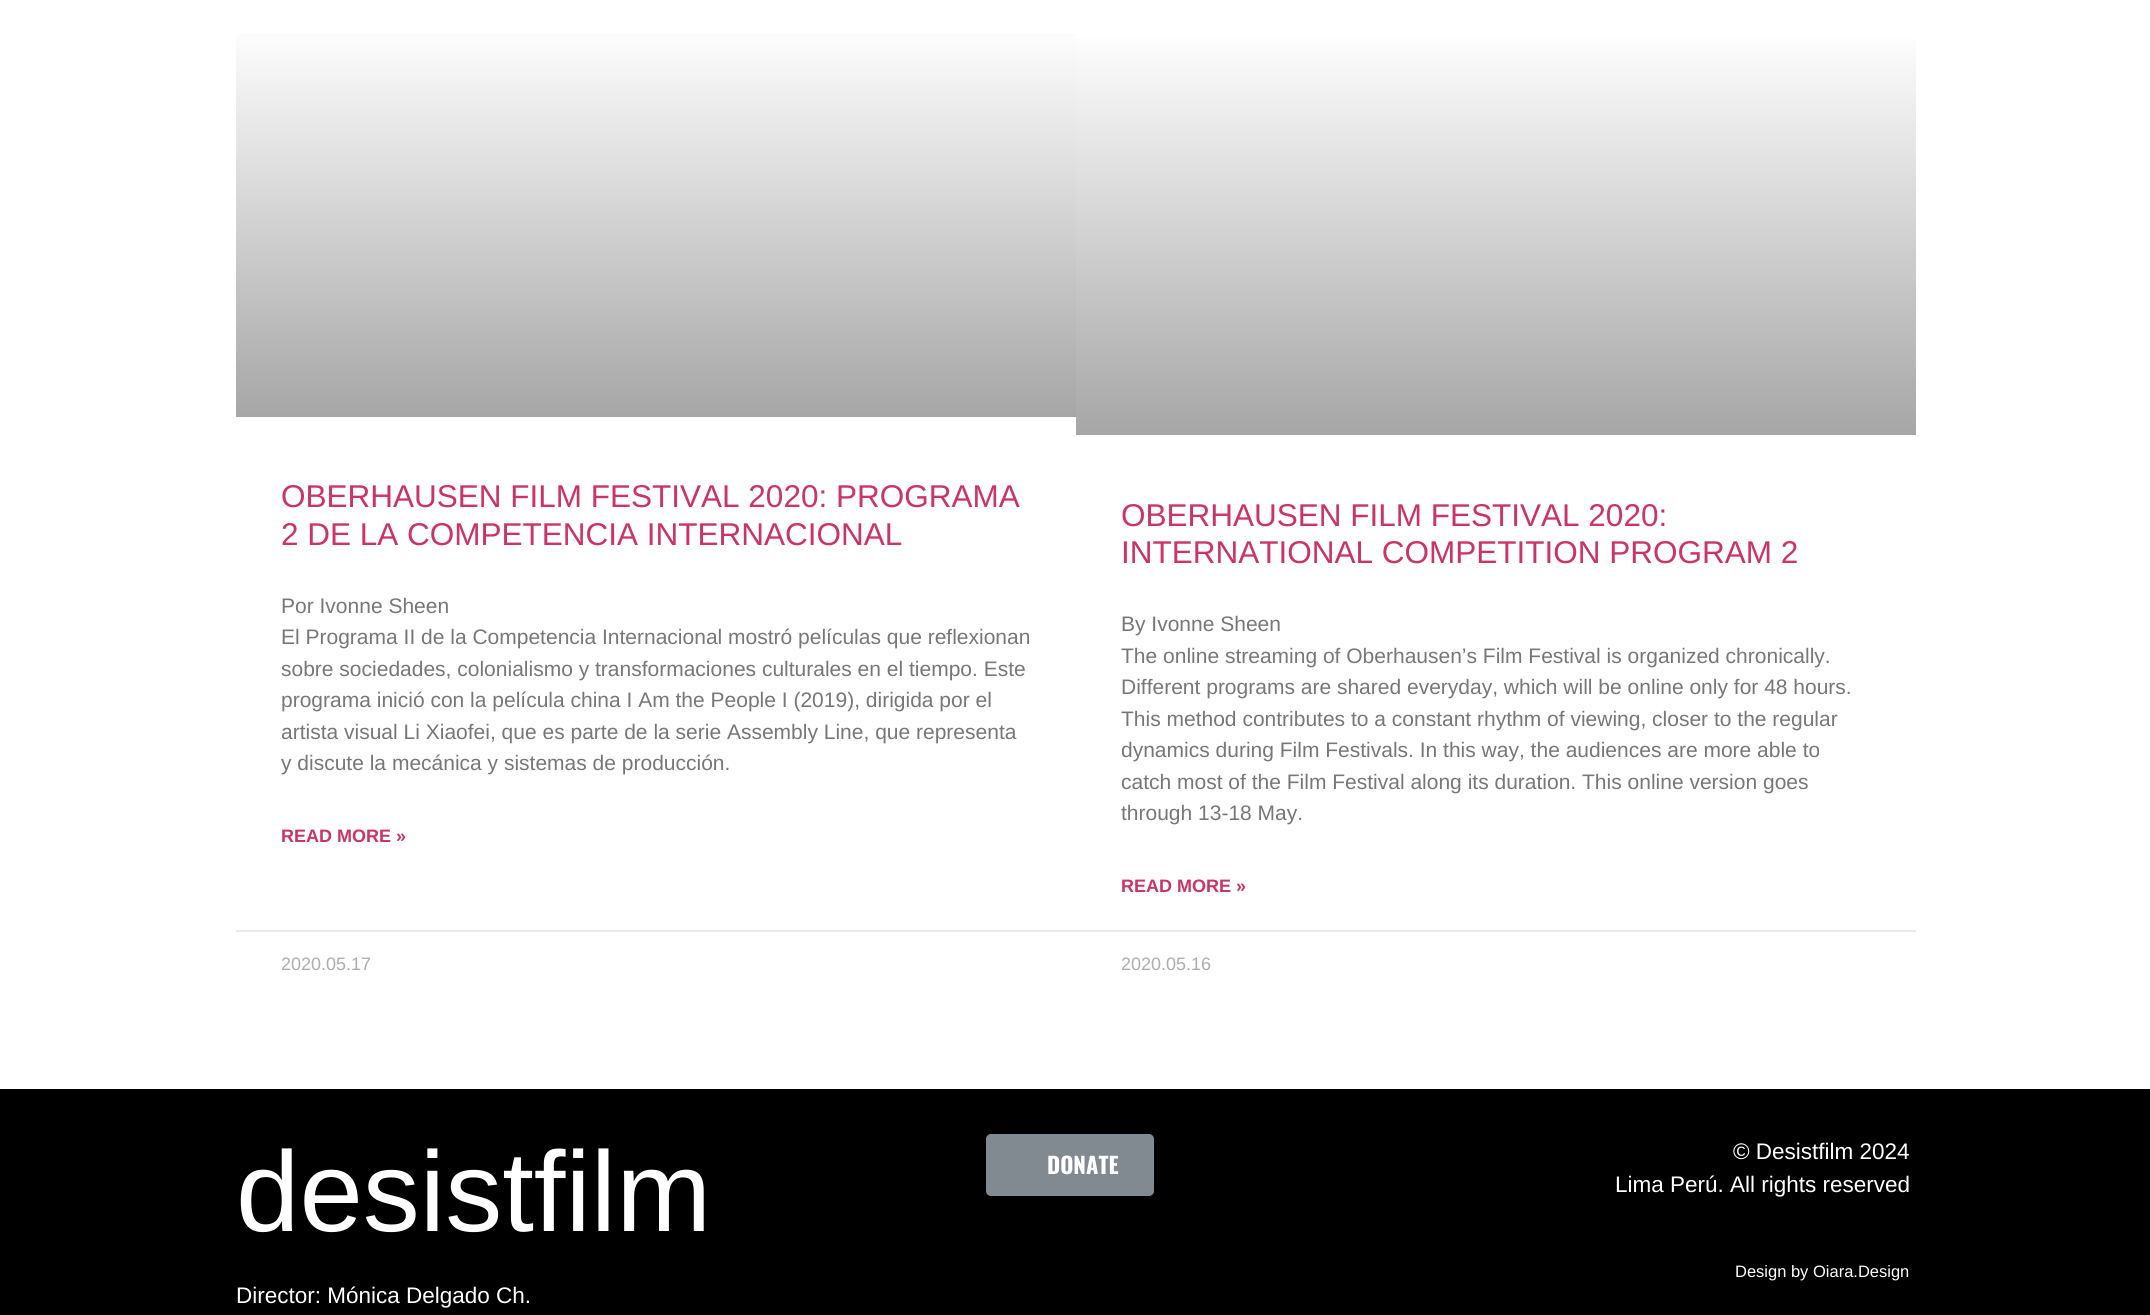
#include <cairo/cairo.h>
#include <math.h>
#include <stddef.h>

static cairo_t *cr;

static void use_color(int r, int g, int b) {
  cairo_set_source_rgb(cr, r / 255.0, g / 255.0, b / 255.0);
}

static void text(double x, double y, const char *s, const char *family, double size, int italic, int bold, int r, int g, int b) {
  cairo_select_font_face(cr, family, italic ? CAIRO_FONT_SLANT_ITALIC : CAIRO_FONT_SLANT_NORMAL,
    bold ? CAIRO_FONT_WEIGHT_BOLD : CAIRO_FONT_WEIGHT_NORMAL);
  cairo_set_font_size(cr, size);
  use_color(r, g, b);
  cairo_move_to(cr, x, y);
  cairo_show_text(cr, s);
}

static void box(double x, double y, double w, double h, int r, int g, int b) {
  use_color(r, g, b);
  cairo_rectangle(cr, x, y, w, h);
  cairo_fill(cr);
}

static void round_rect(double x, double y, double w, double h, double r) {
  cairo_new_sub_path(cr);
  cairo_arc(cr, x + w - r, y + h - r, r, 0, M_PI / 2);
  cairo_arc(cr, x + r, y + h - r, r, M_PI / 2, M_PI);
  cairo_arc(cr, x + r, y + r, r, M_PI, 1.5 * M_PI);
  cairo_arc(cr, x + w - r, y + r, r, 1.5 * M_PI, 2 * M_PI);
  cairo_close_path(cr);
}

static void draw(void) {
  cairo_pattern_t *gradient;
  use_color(255, 255, 255);
  cairo_paint(cr);
  gradient = cairo_pattern_create_linear(656, 417, 656, -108);
  cairo_pattern_add_color_stop_rgba(gradient, 0, 0.651, 0.651, 0.651, 1);
  cairo_pattern_add_color_stop_rgba(gradient, 0.75, 1, 1, 1, 1);
  cairo_set_source(cr, gradient);
  cairo_pattern_destroy(gradient);
  cairo_rectangle(cr, 236, 34, 840, 383);
  cairo_fill(cr);
  box(236, 930, 1680, 2, 234, 234, 234);
  gradient = cairo_pattern_create_linear(1496, 435, 1496, -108);
  cairo_pattern_add_color_stop_rgba(gradient, 0, 0.651, 0.651, 0.651, 1);
  cairo_pattern_add_color_stop_rgba(gradient, 0.75, 1, 1, 1, 1);
  cairo_set_source(cr, gradient);
  cairo_pattern_destroy(gradient);
  cairo_rectangle(cr, 1076, 39, 840, 396);
  cairo_fill(cr);
  box(0, 1089, 2150, 226, 0, 0, 0);
  use_color(129, 138, 145);
  round_rect(986, 1134, 168, 62, 5);
  cairo_fill(cr);
  text(281, 507, "OBERHAUSEN FILM FESTIVAL 2020: PROGRAMA", "Liberation Sans", 31.5, 0, 0, 204, 51, 102);
  text(281, 545, "2 DE LA COMPETENCIA INTERNACIONAL", "Liberation Sans", 31.5, 0, 0, 204, 51, 102);
  text(281, 613, "Por Ivonne Sheen", "Liberation Sans", 21, 0, 0, 119, 119, 119);
  text(281, 644, "El Programa II de la Competencia Internacional mostró películas que reflexionan", "Liberation Sans", 21, 0, 0, 119, 119, 119);
  text(281, 676, "sobre sociedades, colonialismo y transformaciones culturales en el tiempo. Este", "Liberation Sans", 21, 0, 0, 119, 119, 119);
  text(281, 707, "programa inició con la película china I Am the People I (2019), dirigida por el", "Liberation Sans", 21, 0, 0, 119, 119, 119);
  text(281, 739, "artista visual Li Xiaofei, que es parte de la serie Assembly Line, que representa", "Liberation Sans", 21, 0, 0, 119, 119, 119);
  text(281, 770, "y discute la mecánica y sistemas de producción.", "Liberation Sans", 21, 0, 0, 119, 119, 119);
  text(281, 842, "READ MORE »", "Liberation Sans", 18, 0, 1, 204, 51, 102);
  text(281, 970, "2020.05.17", "Liberation Sans", 18, 0, 0, 173, 173, 173);
  text(1121, 526, "OBERHAUSEN FILM FESTIVAL 2020:", "Liberation Sans", 31.5, 0, 0, 204, 51, 102);
  text(1121, 563, "INTERNATIONAL COMPETITION PROGRAM 2", "Liberation Sans", 31.5, 0, 0, 204, 51, 102);
  text(1121, 631, "By Ivonne Sheen", "Liberation Sans", 21, 0, 0, 119, 119, 119);
  text(1121, 663, "The online streaming of Oberhausen’s Film Festival is organized chronically.", "Liberation Sans", 21, 0, 0, 119, 119, 119);
  text(1121, 694, "Different programs are shared everyday, which will be online only for 48 hours.", "Liberation Sans", 21, 0, 0, 119, 119, 119);
  text(1121, 726, "This method contributes to a constant rhythm of viewing, closer to the regular", "Liberation Sans", 21, 0, 0, 119, 119, 119);
  text(1121, 757, "dynamics during Film Festivals. In this way, the audiences are more able to", "Liberation Sans", 21, 0, 0, 119, 119, 119);
  text(1121, 789, "catch most of the Film Festival along its duration. This online version goes", "Liberation Sans", 21, 0, 0, 119, 119, 119);
  text(1121, 820, "through 13-18 May.", "Liberation Sans", 21, 0, 0, 119, 119, 119);
  text(1121, 892, "READ MORE »", "Liberation Sans", 18, 0, 1, 204, 51, 102);
  text(1121, 970, "2020.05.16", "Liberation Sans", 18, 0, 0, 173, 173, 173);
  text(236, 1231, "desistfilm", "Liberation Sans", 114, 0, 0, 255, 255, 255);
  text(236, 1303, "Director: Mónica Delgado Ch.", "Liberation Sans", 22.5, 0, 0, 255, 255, 255);
  text(1047, 1174, "DONATE", "Oswald", 22.5, 0, 1, 255, 255, 255);
  text(1733, 1159, "© Desistfilm 2024", "Liberation Sans", 22.5, 0, 0, 255, 255, 255);
  text(1615, 1192, "Lima Perú. All rights reserved", "Liberation Sans", 22.5, 0, 0, 255, 255, 255);
  text(1735, 1277, "Design by Oiara.Design", "Liberation Sans", 16.5, 0, 0, 255, 255, 255);
}

int main(void) {
  cairo_surface_t *surface = cairo_image_surface_create(CAIRO_FORMAT_RGB24, 2150, 1315);
  cr = cairo_create(surface);
  cairo_font_options_t *options = cairo_font_options_create();
  cairo_font_options_set_hint_metrics(options, CAIRO_HINT_METRICS_OFF);
  cairo_font_options_set_hint_style(options, CAIRO_HINT_STYLE_NONE);
  cairo_set_font_options(cr, options);
  cairo_set_miter_limit(cr, 4);
  draw();
  cairo_surface_write_to_png(surface, "out.png");
  cairo_font_options_destroy(options);
  cairo_destroy(cr);
  cairo_surface_destroy(surface);
  return 0;
}
